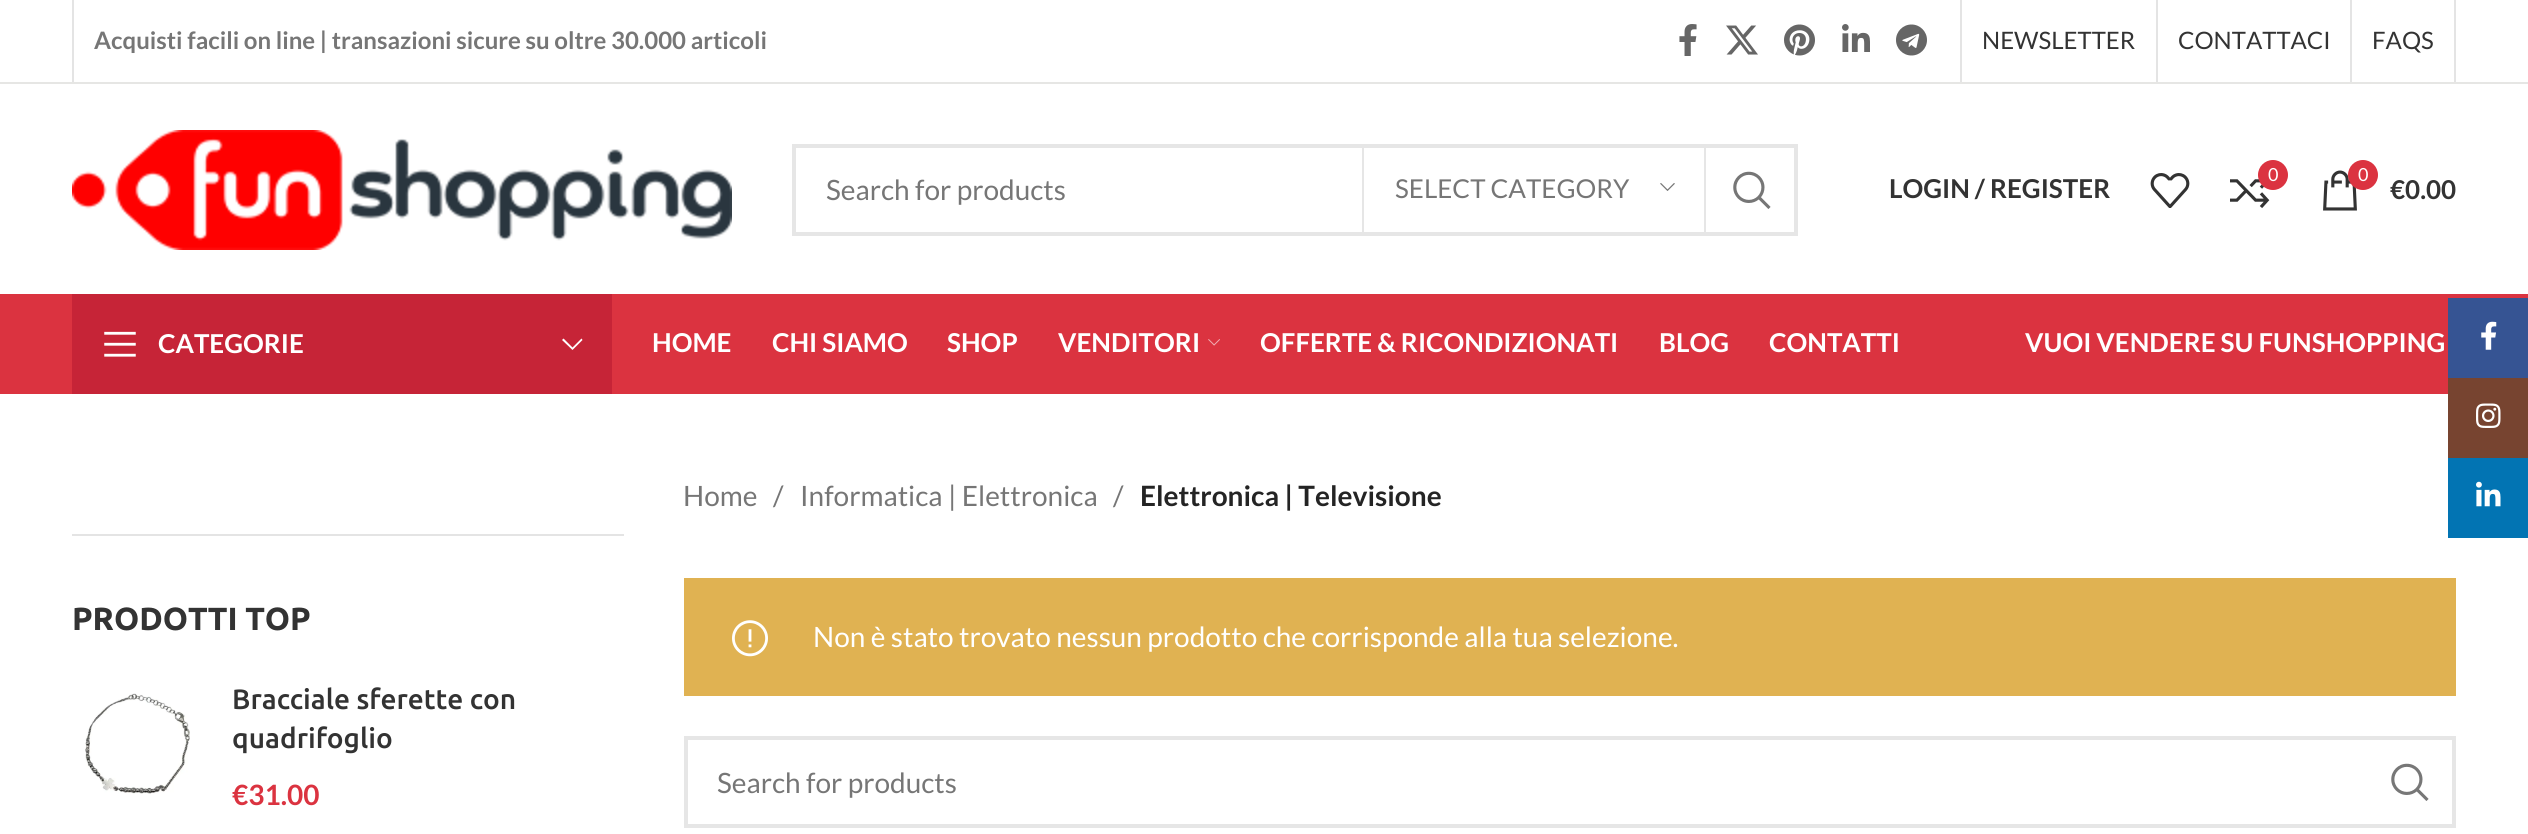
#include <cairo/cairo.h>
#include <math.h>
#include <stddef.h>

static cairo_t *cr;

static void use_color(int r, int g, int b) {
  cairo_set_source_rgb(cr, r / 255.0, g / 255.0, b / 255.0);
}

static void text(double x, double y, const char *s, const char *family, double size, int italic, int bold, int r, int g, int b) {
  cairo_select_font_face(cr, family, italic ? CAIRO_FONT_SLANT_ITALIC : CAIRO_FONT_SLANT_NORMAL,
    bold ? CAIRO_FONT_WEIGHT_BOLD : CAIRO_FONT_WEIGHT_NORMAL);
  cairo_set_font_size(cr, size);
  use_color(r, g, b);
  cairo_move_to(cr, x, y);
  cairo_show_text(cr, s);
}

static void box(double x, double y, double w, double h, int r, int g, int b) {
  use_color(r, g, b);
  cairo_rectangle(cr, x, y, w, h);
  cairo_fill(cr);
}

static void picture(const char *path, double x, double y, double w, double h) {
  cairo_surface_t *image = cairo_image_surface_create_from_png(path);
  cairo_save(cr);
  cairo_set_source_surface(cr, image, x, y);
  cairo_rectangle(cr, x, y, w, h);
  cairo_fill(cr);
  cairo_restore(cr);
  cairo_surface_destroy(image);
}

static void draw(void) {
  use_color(255, 255, 255);
  cairo_paint(cr);
  box(0, 82, 2528, 2, 230, 230, 228);
  box(72, 0, 2, 82, 228, 228, 228);
  picture("img_01.png", 1679, 24, 18, 32);
  picture("img_02.png", 1726, 25, 32, 30);
  picture("img_03.png", 1784, 24, 31, 32);
  picture("img_04.png", 1842, 24, 28, 28);
  picture("img_05.png", 1896, 24, 31, 32);
  box(1960, 0, 2, 82, 228, 228, 228);
  box(2156, 0, 2, 82, 228, 228, 228);
  box(2350, 0, 2, 82, 228, 228, 228);
  box(2454, 0, 2, 82, 228, 228, 228);
  picture("img_06.png", 72, 130, 660, 120);
  cairo_rectangle(cr, 794, 146, 1002, 88);
  use_color(230, 230, 230);
  cairo_set_line_width(cr, 4);
  cairo_stroke(cr);
  box(1704, 148, 2, 84, 230, 230, 230);
  box(1362, 148, 2, 84, 230, 230, 230);
  picture("img_07.png", 1660, 183, 15, 8);
  picture("img_08.png", 1733, 171, 38, 38);
  picture("img_09.png", 2150, 173, 40, 35);
  picture("img_10.png", 2230, 179, 40, 29);
  use_color(219, 51, 64);
  cairo_arc(cr, 2273, 175, 15, 0, 2 * M_PI);
  cairo_fill(cr);
  picture("img_11.png", 2323, 170, 34, 41);
  cairo_arc(cr, 2363, 175, 15, 0, 2 * M_PI);
  cairo_fill(cr);
  box(0, 294, 2528, 100, 219, 51, 64);
  box(72, 294, 540, 100, 198, 36, 55);
  picture("img_12.png", 104, 331, 32, 26);
  use_color(255, 255, 255);
  cairo_new_path(cr);
  cairo_move_to(cr, 581.5, 338.5);
  cairo_line_to(cr, 572.5, 347.5);
  cairo_line_to(cr, 563.5, 338.5);
  cairo_line_to(cr, 562, 340);
  cairo_line_to(cr, 572.5, 350);
  cairo_line_to(cr, 582.5, 340);
  cairo_close_path(cr);
  cairo_fill(cr);
  picture("img_13.png", 1208, 339, 12, 7);
  box(72, 534, 552, 2, 228, 228, 228);
  picture("img_14.png", 85, 693, 105, 101);
  box(684, 578, 1772, 118, 224, 178, 82);
  picture("img_15.png", 732, 620, 36, 37);
  cairo_rectangle(cr, 686, 738, 1768, 88);
  use_color(230, 230, 230);
  cairo_stroke(cr);
  picture("img_16.png", 2391, 763, 38, 38);
  box(2448, 298, 80, 80, 54, 84, 147);
  picture("img_17.png", 2481, 321, 16, 29);
  box(2448, 378, 80, 80, 119, 68, 48);
  picture("img_18.png", 2476, 403, 25, 25);
  box(2448, 458, 80, 80, 2, 116, 179);
  picture("img_19.png", 2476, 481, 25, 26);
  text(94, 49, "Acquisti facili on line | transazioni sicure su oltre 30.000 articoli", "Lato", 24, 0, 1, 118, 118, 118);
  text(1982, 49, "NEWSLETTER", "Lato", 24, 0, 0, 51, 51, 51);
  text(2178, 49, "CONTATTACI", "Lato", 24, 0, 0, 51, 51, 51);
  text(2372, 49, "FAQS", "Lato", 24, 0, 0, 51, 51, 51);
  text(826, 200, "Search for products", "Lato", 28, 0, 0, 118, 118, 118);
  text(1395, 198, "SELECT CATEGORY", "Lato", 26, 0, 0, 118, 118, 118);
  text(1889, 198, "LOGIN / REGISTER", "Lato", 26, 0, 1, 51, 51, 51);
  text(2268, 181, "0", "Lato", 18, 0, 0, 255, 255, 255);
  text(2358, 181, "0", "Lato", 18, 0, 0, 255, 255, 255);
  text(2390, 199, "€0.00", "Lato", 26, 0, 1, 51, 51, 51);
  text(158, 353, "CATEGORIE", "Lato", 26, 0, 1, 255, 255, 255);
  text(652, 352, "HOME", "Lato", 26, 0, 1, 255, 255, 255);
  text(772, 352, "CHI SIAMO", "Lato", 26, 0, 1, 255, 255, 255);
  text(947, 352, "SHOP", "Lato", 26, 0, 1, 255, 255, 255);
  text(1058, 352, "VENDITORI", "Lato", 26, 0, 1, 255, 255, 255);
  text(1260, 352, "OFFERTE & RICONDIZIONATI", "Lato", 26, 0, 1, 255, 255, 255);
  text(1659, 352, "BLOG", "Lato", 26, 0, 1, 255, 255, 255);
  text(1769, 352, "CONTATTI", "Lato", 26, 0, 1, 255, 255, 255);
  text(2025, 352, "VUOI VENDERE SU FUNSHOPPING", "Lato", 26, 0, 1, 255, 255, 255);
  text(72, 630, "PRODOTTI TOP", "Ubuntu", 32, 0, 1, 51, 51, 51);
  text(232, 709, "Bracciale sferette con", "Ubuntu Medium", 28, 0, 0, 51, 51, 51);
  text(232, 748, "quadrifoglio", "Ubuntu Medium", 28, 0, 0, 51, 51, 51);
  text(232, 805, "€31.00", "Lato", 28, 0, 1, 219, 51, 64);
  text(683, 506, "Home", "Lato", 28, 0, 0, 118, 118, 118);
  text(773, 506, "/", "Lato", 28, 0, 0, 118, 118, 118);
  text(800, 506, "Informatica | Elettronica", "Lato", 28, 0, 0, 118, 118, 118);
  text(1113, 506, "/", "Lato", 28, 0, 0, 118, 118, 118);
  text(1140, 506, "Elettronica | Televisione", "Lato", 28, 0, 1, 36, 36, 36);
  text(813, 647, "Non è stato trovato nessun prodotto che corrisponde alla tua selezione.", "Lato", 28, 0, 0, 255, 255, 255);
  text(717, 793, "Search for products", "Lato", 28, 0, 0, 118, 118, 118);
}

int main(void) {
  cairo_surface_t *surface = cairo_image_surface_create(CAIRO_FORMAT_RGB24, 2528, 834);
  cr = cairo_create(surface);
  cairo_font_options_t *options = cairo_font_options_create();
  cairo_font_options_set_hint_metrics(options, CAIRO_HINT_METRICS_OFF);
  cairo_font_options_set_hint_style(options, CAIRO_HINT_STYLE_NONE);
  cairo_set_font_options(cr, options);
  cairo_set_miter_limit(cr, 4);
  draw();
  cairo_surface_write_to_png(surface, "out.png");
  cairo_font_options_destroy(options);
  cairo_destroy(cr);
  cairo_surface_destroy(surface);
  return 0;
}
